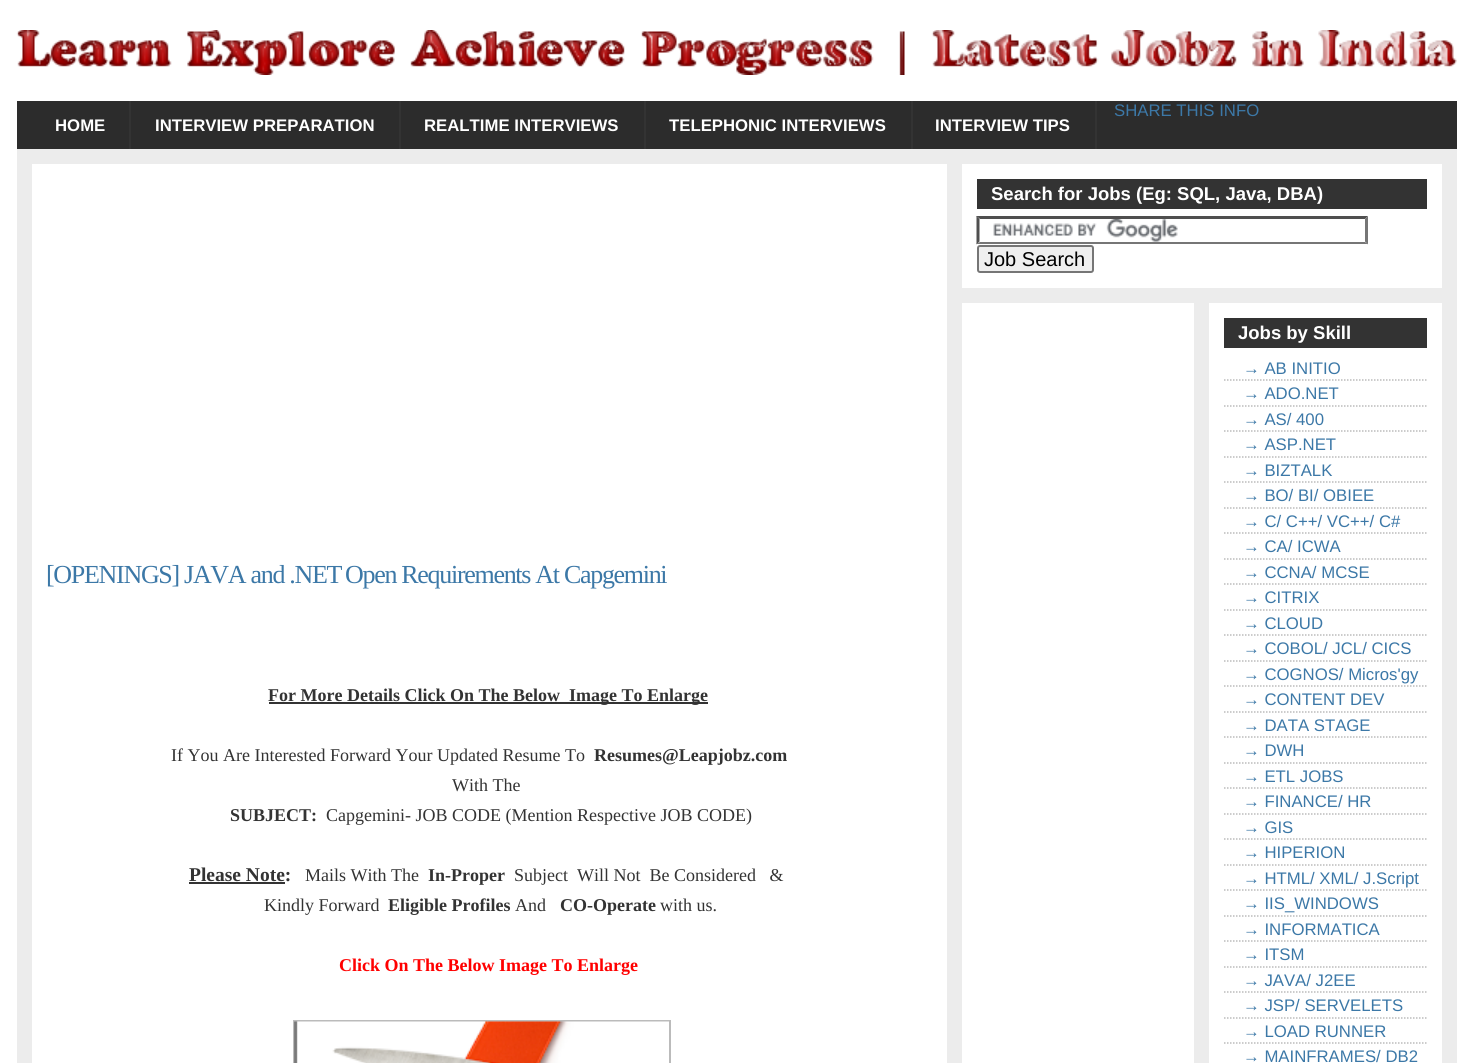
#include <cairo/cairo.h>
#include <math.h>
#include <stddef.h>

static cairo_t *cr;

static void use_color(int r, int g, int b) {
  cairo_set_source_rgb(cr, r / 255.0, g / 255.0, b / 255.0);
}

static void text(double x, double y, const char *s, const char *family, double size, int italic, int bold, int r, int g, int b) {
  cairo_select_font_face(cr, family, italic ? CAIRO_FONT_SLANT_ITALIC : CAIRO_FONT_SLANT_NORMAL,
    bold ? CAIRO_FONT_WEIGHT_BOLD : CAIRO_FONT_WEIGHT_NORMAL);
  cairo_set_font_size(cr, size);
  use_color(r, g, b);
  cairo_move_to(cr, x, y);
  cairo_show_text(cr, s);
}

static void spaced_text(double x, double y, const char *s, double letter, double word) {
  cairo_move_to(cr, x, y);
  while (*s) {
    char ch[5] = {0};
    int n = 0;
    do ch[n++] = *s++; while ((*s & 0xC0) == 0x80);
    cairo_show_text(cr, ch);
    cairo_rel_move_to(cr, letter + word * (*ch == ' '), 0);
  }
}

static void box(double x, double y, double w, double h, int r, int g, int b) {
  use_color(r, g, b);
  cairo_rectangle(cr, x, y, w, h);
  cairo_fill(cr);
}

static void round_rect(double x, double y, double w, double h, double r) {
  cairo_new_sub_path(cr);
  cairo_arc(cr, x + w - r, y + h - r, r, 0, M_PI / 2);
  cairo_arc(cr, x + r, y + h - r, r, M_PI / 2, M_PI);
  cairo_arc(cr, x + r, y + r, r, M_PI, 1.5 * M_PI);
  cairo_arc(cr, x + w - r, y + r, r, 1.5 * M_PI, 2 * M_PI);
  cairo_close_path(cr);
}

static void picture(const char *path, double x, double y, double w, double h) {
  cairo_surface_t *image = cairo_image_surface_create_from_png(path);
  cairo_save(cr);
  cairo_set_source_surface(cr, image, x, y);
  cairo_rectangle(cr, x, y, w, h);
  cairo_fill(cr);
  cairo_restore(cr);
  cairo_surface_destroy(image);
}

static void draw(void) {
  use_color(255, 255, 255);
  cairo_paint(cr);
  picture("img_01.png", 16, 30, 1441, 45);
  box(17, 101, 1440, 48, 44, 44, 44);
  box(129, 101, 2, 48, 51, 51, 51);
  box(399, 101, 2, 48, 51, 51, 51);
  box(644, 101, 2, 48, 51, 51, 51);
  box(911, 101, 2, 48, 51, 51, 51);
  box(1095, 101, 2, 48, 51, 51, 51);
  box(17, 149, 1440, 914, 236, 236, 236);
  box(32, 164, 915, 899, 255, 255, 255);
  box(269, 702, 439, 2, 51, 51, 51);
  box(189, 882, 96, 2, 51, 51, 51);
  cairo_rectangle(cr, 294, 1021, 376, 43);
  use_color(187, 187, 187);
  cairo_stroke(cr);
  picture("img_02.png", 294, 1021, 375, 42);
  box(962, 164, 480, 124, 255, 255, 255);
  box(977, 179, 450, 30, 51, 51, 51);
  picture("img_03.png", 993, 219, 185, 23);
  use_color(79, 79, 79);
  cairo_new_path(cr);
  cairo_move_to(cr, 976, 216);
  cairo_line_to(cr, 1368, 216);
  cairo_line_to(cr, 1365, 219);
  cairo_line_to(cr, 980, 219);
  cairo_close_path(cr);
  cairo_fill(cr);
  use_color(118, 118, 118);
  cairo_new_path(cr);
  cairo_move_to(cr, 1368, 216);
  cairo_line_to(cr, 1368, 244.5);
  cairo_line_to(cr, 1365, 241.5);
  cairo_line_to(cr, 1365, 219);
  cairo_close_path(cr);
  cairo_fill(cr);
  cairo_new_path(cr);
  cairo_move_to(cr, 1368, 244);
  cairo_line_to(cr, 976, 244);
  cairo_line_to(cr, 980, 242);
  cairo_line_to(cr, 1365, 242);
  cairo_close_path(cr);
  cairo_fill(cr);
  use_color(79, 79, 79);
  cairo_new_path(cr);
  cairo_move_to(cr, 976.5, 244.5);
  cairo_line_to(cr, 976.5, 216);
  cairo_line_to(cr, 979.5, 219);
  cairo_line_to(cr, 979.5, 241.5);
  cairo_close_path(cr);
  cairo_fill(cr);
  use_color(239, 239, 239);
  round_rect(978, 246, 115, 26, 2);
  cairo_fill_preserve(cr);
  use_color(118, 118, 118);
  cairo_stroke(cr);
  box(962, 303, 232, 760, 255, 255, 255);
  box(1209, 303, 233, 760, 255, 255, 255);
  box(1224, 318, 203, 30, 51, 51, 51);
  cairo_new_path(cr);
  cairo_move_to(cr, 1224, 380);
  cairo_line_to(cr, 1426.5, 380);
  use_color(187, 187, 187);
  cairo_set_line_width(cr, 1.5);
  cairo_set_dash(cr, (double[]){1.5, 1.5}, 2, 0);
  cairo_stroke(cr);
  cairo_new_path(cr);
  cairo_move_to(cr, 1224, 406);
  cairo_line_to(cr, 1426.5, 406);
  cairo_stroke(cr);
  cairo_new_path(cr);
  cairo_move_to(cr, 1224, 431);
  cairo_line_to(cr, 1426.5, 431);
  cairo_stroke(cr);
  cairo_new_path(cr);
  cairo_move_to(cr, 1224, 457);
  cairo_line_to(cr, 1426.5, 457);
  cairo_stroke(cr);
  cairo_new_path(cr);
  cairo_move_to(cr, 1224, 482);
  cairo_line_to(cr, 1426.5, 482);
  cairo_stroke(cr);
  cairo_new_path(cr);
  cairo_move_to(cr, 1224, 508);
  cairo_line_to(cr, 1426.5, 508);
  cairo_stroke(cr);
  cairo_new_path(cr);
  cairo_move_to(cr, 1224, 533);
  cairo_line_to(cr, 1426.5, 533);
  cairo_stroke(cr);
  cairo_new_path(cr);
  cairo_move_to(cr, 1224, 559);
  cairo_line_to(cr, 1426.5, 559);
  cairo_stroke(cr);
  cairo_new_path(cr);
  cairo_move_to(cr, 1224, 584);
  cairo_line_to(cr, 1426.5, 584);
  cairo_stroke(cr);
  cairo_new_path(cr);
  cairo_move_to(cr, 1224, 610);
  cairo_line_to(cr, 1426.5, 610);
  cairo_stroke(cr);
  cairo_new_path(cr);
  cairo_move_to(cr, 1224, 635);
  cairo_line_to(cr, 1426.5, 635);
  cairo_stroke(cr);
  cairo_new_path(cr);
  cairo_move_to(cr, 1224, 661);
  cairo_line_to(cr, 1426.5, 661);
  cairo_stroke(cr);
  cairo_new_path(cr);
  cairo_move_to(cr, 1224, 686);
  cairo_line_to(cr, 1426.5, 686);
  cairo_stroke(cr);
  cairo_new_path(cr);
  cairo_move_to(cr, 1224, 712);
  cairo_line_to(cr, 1426.5, 712);
  cairo_stroke(cr);
  cairo_new_path(cr);
  cairo_move_to(cr, 1224, 737);
  cairo_line_to(cr, 1426.5, 737);
  cairo_stroke(cr);
  cairo_new_path(cr);
  cairo_move_to(cr, 1224, 763);
  cairo_line_to(cr, 1426.5, 763);
  cairo_stroke(cr);
  cairo_new_path(cr);
  cairo_move_to(cr, 1224, 788);
  cairo_line_to(cr, 1426.5, 788);
  cairo_stroke(cr);
  cairo_new_path(cr);
  cairo_move_to(cr, 1224, 814);
  cairo_line_to(cr, 1426.5, 814);
  cairo_stroke(cr);
  cairo_new_path(cr);
  cairo_move_to(cr, 1224, 839);
  cairo_line_to(cr, 1426.5, 839);
  cairo_stroke(cr);
  cairo_new_path(cr);
  cairo_move_to(cr, 1224, 865);
  cairo_line_to(cr, 1426.5, 865);
  cairo_stroke(cr);
  cairo_new_path(cr);
  cairo_move_to(cr, 1224, 890);
  cairo_line_to(cr, 1426.5, 890);
  cairo_stroke(cr);
  cairo_new_path(cr);
  cairo_move_to(cr, 1224, 916);
  cairo_line_to(cr, 1426.5, 916);
  cairo_stroke(cr);
  cairo_new_path(cr);
  cairo_move_to(cr, 1224, 941);
  cairo_line_to(cr, 1426.5, 941);
  cairo_stroke(cr);
  cairo_new_path(cr);
  cairo_move_to(cr, 1224, 967);
  cairo_line_to(cr, 1426.5, 967);
  cairo_stroke(cr);
  cairo_new_path(cr);
  cairo_move_to(cr, 1224, 992);
  cairo_line_to(cr, 1426.5, 992);
  cairo_stroke(cr);
  cairo_new_path(cr);
  cairo_move_to(cr, 1224, 1018);
  cairo_line_to(cr, 1426.5, 1018);
  cairo_stroke(cr);
  cairo_new_path(cr);
  cairo_move_to(cr, 1224, 1043);
  cairo_line_to(cr, 1426.5, 1043);
  cairo_stroke(cr);
  text(1114, 116, "SHARE THIS INFO", "Liberation Sans", 16.75, 0, 0, 60, 120, 167);
  text(55, 131, "HOME", "Liberation Sans", 16.75, 0, 1, 255, 255, 255);
  text(155, 131, "INTERVIEW PREPARATION", "Liberation Sans", 16.75, 0, 1, 255, 255, 255);
  text(424, 131, "REALTIME INTERVIEWS", "Liberation Sans", 16.75, 0, 1, 255, 255, 255);
  text(669, 131, "TELEPHONIC INTERVIEWS", "Liberation Sans", 16.75, 0, 1, 255, 255, 255);
  text(935, 131, "INTERVIEW TIPS", "Liberation Sans", 16.75, 0, 1, 255, 255, 255);
  cairo_select_font_face(cr, "Liberation Serif", CAIRO_FONT_SLANT_NORMAL, CAIRO_FONT_WEIGHT_NORMAL);
  cairo_set_font_size(cr, 26);
  use_color(60, 120, 167);
  spaced_text(46, 583, "[OPENINGS] JAVA and .NET", -1.3, 0);
  spaced_text(345, 583, "Open Requirements At Capgemini", -1.3, 0);
  text(268, 701, "For More Details Click On The Below  Image To Enlarge", "Liberation Serif", 18, 0, 1, 51, 51, 51);
  text(171, 761, "If You Are Interested Forward Your Updated Resume To", "Liberation Serif", 18, 0, 0, 51, 51, 51);
  text(594, 761, "Resumes@Leapjobz.com", "Liberation Serif", 18, 0, 1, 51, 51, 51);
  text(452, 791, "With The", "Liberation Serif", 18, 0, 0, 51, 51, 51);
  text(230, 821, "SUBJECT:", "Liberation Serif", 18, 0, 1, 51, 51, 51);
  text(326, 821, "Capgemini- JOB CODE (Mention Respective JOB CODE)", "Liberation Serif", 18, 0, 0, 51, 51, 51);
  text(189, 881, "Please Note:", "Liberation Serif", 19.5, 0, 1, 51, 51, 51);
  text(305, 881, "Mails With The", "Liberation Serif", 18, 0, 0, 51, 51, 51);
  text(428, 881, "In-Proper", "Liberation Serif", 18, 0, 1, 51, 51, 51);
  text(514, 881, "Subject  Will Not  Be Considered   &", "Liberation Serif", 18, 0, 0, 51, 51, 51);
  text(264, 911, "Kindly Forward", "Liberation Serif", 18, 0, 0, 51, 51, 51);
  text(388, 911, "Eligible Profiles", "Liberation Serif", 18, 0, 1, 51, 51, 51);
  text(515, 911, "And", "Liberation Serif", 18, 0, 0, 51, 51, 51);
  text(560, 911, "CO-Operate", "Liberation Serif", 18, 0, 1, 51, 51, 51);
  text(660, 911, "with us.", "Liberation Serif", 18, 0, 0, 51, 51, 51);
  text(339, 971, "Click On The Below Image To Enlarge", "Liberation Serif", 18, 0, 1, 255, 0, 0);
  text(991, 200, "Search for Jobs (Eg: SQL, Java, DBA)", "Liberation Sans", 18.5, 0, 1, 255, 255, 255);
  text(984, 266, "Job Search", "Liberation Sans", 20, 0, 0, 0, 0, 0);
  text(1238, 339, "Jobs by Skill", "Liberation Sans", 18.5, 0, 1, 255, 255, 255);
  text(1243, 374, "→ AB INITIO", "Liberation Sans", 16.75, 0, 0, 60, 120, 167);
  text(1243, 399, "→ ADO.NET", "Liberation Sans", 16.75, 0, 0, 60, 120, 167);
  text(1243, 425, "→ AS/ 400", "Liberation Sans", 16.75, 0, 0, 60, 120, 167);
  text(1243, 450, "→ ASP.NET", "Liberation Sans", 16.75, 0, 0, 60, 120, 167);
  text(1243, 476, "→ BIZTALK", "Liberation Sans", 16.75, 0, 0, 60, 120, 167);
  text(1243, 501, "→ BO/ BI/ OBIEE", "Liberation Sans", 16.75, 0, 0, 60, 120, 167);
  text(1243, 527, "→ C/ C++/ VC++/ C#", "Liberation Sans", 16.75, 0, 0, 60, 120, 167);
  text(1243, 552, "→ CA/ ICWA", "Liberation Sans", 16.75, 0, 0, 60, 120, 167);
  text(1243, 578, "→ CCNA/ MCSE", "Liberation Sans", 16.75, 0, 0, 60, 120, 167);
  text(1243, 603, "→ CITRIX", "Liberation Sans", 16.75, 0, 0, 60, 120, 167);
  text(1243, 629, "→ CLOUD", "Liberation Sans", 16.75, 0, 0, 60, 120, 167);
  text(1243, 654, "→ COBOL/ JCL/ CICS", "Liberation Sans", 16.75, 0, 0, 60, 120, 167);
  text(1243, 680, "→ COGNOS/ Micros'gy", "Liberation Sans", 16.75, 0, 0, 60, 120, 167);
  text(1243, 705, "→ CONTENT DEV", "Liberation Sans", 16.75, 0, 0, 60, 120, 167);
  text(1243, 731, "→ DATA STAGE", "Liberation Sans", 16.75, 0, 0, 60, 120, 167);
  text(1243, 756, "→ DWH", "Liberation Sans", 16.75, 0, 0, 60, 120, 167);
  text(1243, 782, "→ ETL JOBS", "Liberation Sans", 16.75, 0, 0, 60, 120, 167);
  text(1243, 807, "→ FINANCE/ HR", "Liberation Sans", 16.75, 0, 0, 60, 120, 167);
  text(1243, 833, "→ GIS", "Liberation Sans", 16.75, 0, 0, 60, 120, 167);
  text(1243, 858, "→ HIPERION", "Liberation Sans", 16.75, 0, 0, 60, 120, 167);
  text(1243, 884, "→ HTML/ XML/ J.Script", "Liberation Sans", 16.75, 0, 0, 60, 120, 167);
  text(1243, 909, "→ IIS_WINDOWS", "Liberation Sans", 16.75, 0, 0, 60, 120, 167);
  text(1243, 935, "→ INFORMATICA", "Liberation Sans", 16.75, 0, 0, 60, 120, 167);
  text(1243, 960, "→ ITSM", "Liberation Sans", 16.75, 0, 0, 60, 120, 167);
  text(1243, 986, "→ JAVA/ J2EE", "Liberation Sans", 16.75, 0, 0, 60, 120, 167);
  text(1243, 1011, "→ JSP/ SERVELETS", "Liberation Sans", 16.75, 0, 0, 60, 120, 167);
  text(1243, 1037, "→ LOAD RUNNER", "Liberation Sans", 16.75, 0, 0, 60, 120, 167);
  text(1243, 1062, "→ MAINFRAMES/ DB2", "Liberation Sans", 16.75, 0, 0, 60, 120, 167);
}

int main(void) {
  cairo_surface_t *surface = cairo_image_surface_create(CAIRO_FORMAT_RGB24, 1471, 1063);
  cr = cairo_create(surface);
  cairo_font_options_t *options = cairo_font_options_create();
  cairo_font_options_set_hint_metrics(options, CAIRO_HINT_METRICS_OFF);
  cairo_font_options_set_hint_style(options, CAIRO_HINT_STYLE_NONE);
  cairo_set_font_options(cr, options);
  cairo_set_miter_limit(cr, 4);
  draw();
  cairo_surface_write_to_png(surface, "out.png");
  cairo_font_options_destroy(options);
  cairo_destroy(cr);
  cairo_surface_destroy(surface);
  return 0;
}
